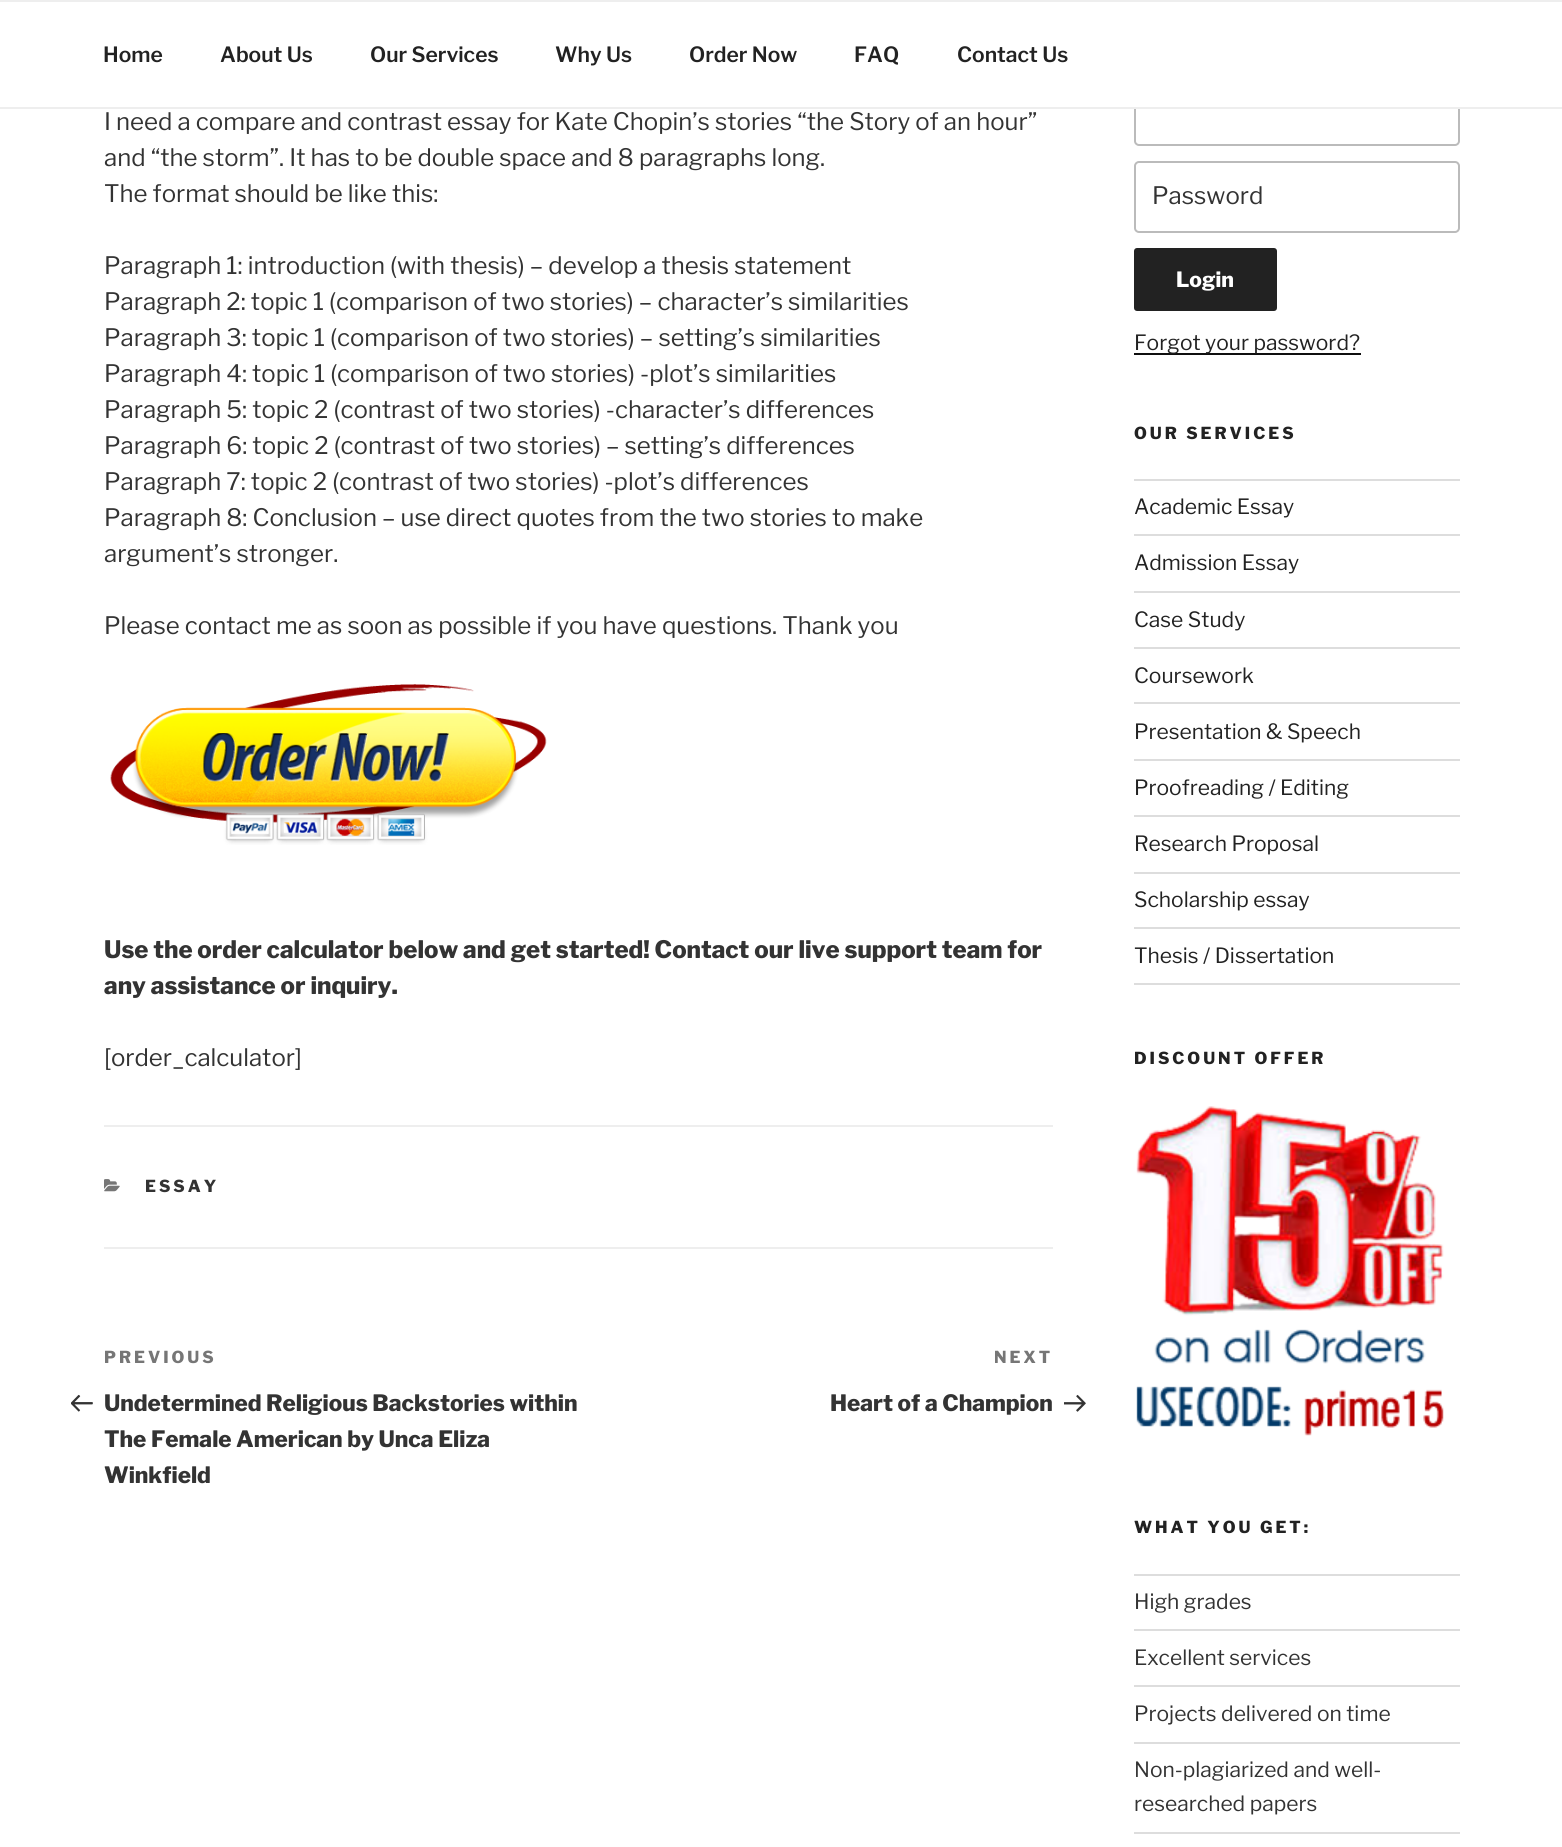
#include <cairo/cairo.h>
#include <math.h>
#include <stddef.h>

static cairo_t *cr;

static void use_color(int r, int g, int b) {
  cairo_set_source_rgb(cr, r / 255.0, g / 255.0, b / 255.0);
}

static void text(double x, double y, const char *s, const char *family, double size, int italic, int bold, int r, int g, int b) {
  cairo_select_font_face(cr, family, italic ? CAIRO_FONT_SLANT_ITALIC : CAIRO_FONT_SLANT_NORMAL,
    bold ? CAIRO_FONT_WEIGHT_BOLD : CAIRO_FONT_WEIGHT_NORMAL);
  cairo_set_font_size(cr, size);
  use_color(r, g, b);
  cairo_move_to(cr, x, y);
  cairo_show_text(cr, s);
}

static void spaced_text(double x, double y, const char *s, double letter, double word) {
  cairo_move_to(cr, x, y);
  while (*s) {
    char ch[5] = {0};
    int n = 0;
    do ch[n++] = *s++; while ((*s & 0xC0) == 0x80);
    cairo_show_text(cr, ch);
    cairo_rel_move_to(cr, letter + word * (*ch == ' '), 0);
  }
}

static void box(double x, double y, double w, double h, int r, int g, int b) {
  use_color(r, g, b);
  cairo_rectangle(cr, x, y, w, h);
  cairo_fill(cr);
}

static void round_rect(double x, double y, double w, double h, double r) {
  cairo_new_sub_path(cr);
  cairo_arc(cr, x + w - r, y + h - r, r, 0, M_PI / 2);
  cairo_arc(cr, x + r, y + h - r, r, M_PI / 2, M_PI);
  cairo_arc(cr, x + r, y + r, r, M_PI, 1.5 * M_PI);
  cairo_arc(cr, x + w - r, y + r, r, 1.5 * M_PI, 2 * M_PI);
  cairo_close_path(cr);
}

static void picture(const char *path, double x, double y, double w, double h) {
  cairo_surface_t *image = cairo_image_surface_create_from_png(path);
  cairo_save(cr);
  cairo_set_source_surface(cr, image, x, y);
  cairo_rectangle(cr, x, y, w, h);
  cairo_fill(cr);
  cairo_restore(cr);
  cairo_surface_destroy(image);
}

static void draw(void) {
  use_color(255, 255, 255);
  cairo_paint(cr);
  round_rect(1135, 73, 324, 72, 4);
  use_color(187, 187, 187);
  cairo_stroke(cr);
  box(1134, 72, 326, 35, 255, 255, 255);
  box(0, 0, 1562, 2, 238, 238, 238);
  box(0, 107, 1562, 2, 238, 238, 238);
  picture("img_01.png", 110, 684, 437, 161);
  box(104, 1125, 949, 2, 238, 238, 238);
  box(104, 1247, 949, 2, 238, 238, 238);
  picture("img_02.png", 104, 1179, 16, 13);
  picture("img_03.png", 71, 1394, 22, 18);
  picture("img_04.png", 1064, 1394, 22, 18);
  round_rect(1135, 162, 324, 70, 4);
  use_color(187, 187, 187);
  cairo_stroke(cr);
  use_color(34, 34, 34);
  round_rect(1134, 248, 143, 63, 3);
  cairo_fill(cr);
  box(1134, 353, 227, 2, 15, 15, 15);
  box(1134, 479, 326, 2, 221, 221, 221);
  box(1134, 534, 326, 2, 221, 221, 221);
  box(1134, 591, 326, 2, 221, 221, 221);
  box(1134, 647, 326, 2, 221, 221, 221);
  box(1134, 702, 326, 2, 221, 221, 221);
  box(1134, 759, 326, 2, 221, 221, 221);
  box(1134, 815, 326, 2, 221, 221, 221);
  box(1134, 872, 326, 2, 221, 221, 221);
  box(1134, 927, 326, 2, 221, 221, 221);
  box(1134, 983, 326, 2, 221, 221, 221);
  picture("img_05.png", 1136, 1106, 308, 330);
  box(1134, 1574, 326, 2, 221, 221, 221);
  box(1134, 1629, 326, 2, 221, 221, 221);
  box(1134, 1685, 326, 2, 221, 221, 221);
  box(1134, 1742, 326, 2, 221, 221, 221);
  box(1134, 1832, 326, 2, 221, 221, 221);
  text(103, 62, "Home", "Libre Franklin SemiBold", 21, 0, 0, 34, 34, 34);
  text(220, 62, "About Us", "Libre Franklin SemiBold", 21, 0, 0, 34, 34, 34);
  text(370, 62, "Our Services", "Libre Franklin SemiBold", 21, 0, 0, 34, 34, 34);
  text(555, 62, "Why Us", "Libre Franklin SemiBold", 21, 0, 0, 34, 34, 34);
  text(689, 62, "Order Now", "Libre Franklin SemiBold", 21, 0, 0, 34, 34, 34);
  text(854, 62, "FAQ", "Libre Franklin SemiBold", 21, 0, 0, 34, 34, 34);
  text(957, 62, "Contact Us", "Libre Franklin SemiBold", 21, 0, 0, 34, 34, 34);
  text(104, 130, "I need a compare and contrast essay for Kate Chopin’s stories “the Story of an hour”", "Libre Franklin", 24, 0, 0, 51, 51, 51);
  text(104, 166, "and “the storm”. It has to be double space and 8 paragraphs long.", "Libre Franklin", 24, 0, 0, 51, 51, 51);
  text(104, 202, "The format should be like this:", "Libre Franklin", 24, 0, 0, 51, 51, 51);
  text(104, 274, "Paragraph 1: introduction (with thesis) – develop a thesis statement", "Libre Franklin", 24, 0, 0, 51, 51, 51);
  text(104, 310, "Paragraph 2: topic 1 (comparison of two stories) – character’s similarities", "Libre Franklin", 24, 0, 0, 51, 51, 51);
  text(104, 346, "Paragraph 3: topic 1 (comparison of two stories) – setting’s similarities", "Libre Franklin", 24, 0, 0, 51, 51, 51);
  text(104, 382, "Paragraph 4: topic 1 (comparison of two stories) -plot’s similarities", "Libre Franklin", 24, 0, 0, 51, 51, 51);
  text(104, 418, "Paragraph 5: topic 2 (contrast of two stories) -character’s differences", "Libre Franklin", 24, 0, 0, 51, 51, 51);
  text(104, 454, "Paragraph 6: topic 2 (contrast of two stories) – setting’s differences", "Libre Franklin", 24, 0, 0, 51, 51, 51);
  text(104, 490, "Paragraph 7: topic 2 (contrast of two stories) -plot’s differences", "Libre Franklin", 24, 0, 0, 51, 51, 51);
  text(104, 526, "Paragraph 8: Conclusion – use direct quotes from the two stories to make", "Libre Franklin", 24, 0, 0, 51, 51, 51);
  text(104, 562, "argument’s stronger.", "Libre Franklin", 24, 0, 0, 51, 51, 51);
  text(104, 634, "Please contact me as soon as possible if you have questions. Thank you", "Libre Franklin", 24, 0, 0, 51, 51, 51);
  text(104, 958, "Use the order calculator below and get started! Contact our live support team for", "Libre Franklin ExtraBold", 24, 0, 0, 51, 51, 51);
  text(104, 994, "any assistance or inquiry.", "Libre Franklin ExtraBold", 24, 0, 0, 51, 51, 51);
  text(104, 1066, "[order_calculator]", "Libre Franklin", 24, 0, 0, 51, 51, 51);
  cairo_select_font_face(cr, "Libre Franklin ExtraBold", CAIRO_FONT_SLANT_NORMAL, CAIRO_FONT_WEIGHT_NORMAL);
  cairo_set_font_size(cr, 16.5);
  spaced_text(145, 1192, "ESSAY", 3, 0);
  use_color(118, 118, 118);
  spaced_text(104, 1363, "PREVIOUS", 3, 0);
  text(104, 1411, "Undetermined Religious Backstories within", "Libre Franklin ExtraBold", 22.5, 0, 0, 51, 51, 51);
  text(104, 1447, "The Female American by Unca Eliza", "Libre Franklin ExtraBold", 22.5, 0, 0, 51, 51, 51);
  text(104, 1483, "Winkfield", "Libre Franklin ExtraBold", 22.5, 0, 0, 51, 51, 51);
  cairo_set_font_size(cr, 16.5);
  use_color(118, 118, 118);
  spaced_text(994, 1363, "NEXT", 3, 0);
  text(830, 1411, "Heart of a Champion", "Libre Franklin ExtraBold", 22.5, 0, 0, 51, 51, 51);
  text(1152, 204, "Password", "Libre Franklin", 24, 0, 0, 51, 51, 51);
  text(1176, 287, "Login", "Libre Franklin ExtraBold", 21, 0, 0, 255, 255, 255);
  text(1134, 350, "Forgot your password?", "Libre Franklin", 21, 0, 0, 34, 34, 34);
  cairo_select_font_face(cr, "Libre Franklin ExtraBold", CAIRO_FONT_SLANT_NORMAL, CAIRO_FONT_WEIGHT_NORMAL);
  cairo_set_font_size(cr, 16.5);
  spaced_text(1134, 439, "OUR SERVICES", 3, 0);
  text(1134, 514, "Academic Essay", "Libre Franklin", 21, 0, 0, 34, 34, 34);
  text(1134, 570, "Admission Essay", "Libre Franklin", 21, 0, 0, 34, 34, 34);
  text(1134, 627, "Case Study", "Libre Franklin", 21, 0, 0, 34, 34, 34);
  text(1134, 683, "Coursework", "Libre Franklin", 21, 0, 0, 34, 34, 34);
  text(1134, 739, "Presentation & Speech", "Libre Franklin", 21, 0, 0, 34, 34, 34);
  text(1134, 795, "Proofreading / Editing", "Libre Franklin", 21, 0, 0, 34, 34, 34);
  text(1134, 851, "Research Proposal", "Libre Franklin", 21, 0, 0, 34, 34, 34);
  text(1134, 907, "Scholarship essay", "Libre Franklin", 21, 0, 0, 34, 34, 34);
  text(1134, 963, "Thesis / Dissertation", "Libre Franklin", 21, 0, 0, 34, 34, 34);
  cairo_select_font_face(cr, "Libre Franklin ExtraBold", CAIRO_FONT_SLANT_NORMAL, CAIRO_FONT_WEIGHT_NORMAL);
  cairo_set_font_size(cr, 16.5);
  spaced_text(1134, 1064, "DISCOUNT OFFER", 3, 0);
  spaced_text(1134, 1533, "WHAT YOU GET:", 3, 0);
  text(1134, 1609, "High grades", "Libre Franklin", 21, 0, 0, 51, 51, 51);
  text(1134, 1665, "Excellent services", "Libre Franklin", 21, 0, 0, 51, 51, 51);
  text(1134, 1721, "Projects delivered on time", "Libre Franklin", 21, 0, 0, 51, 51, 51);
  text(1134, 1777, "Non-plagiarized and well-", "Libre Franklin", 21, 0, 0, 51, 51, 51);
  text(1134, 1811, "researched papers", "Libre Franklin", 21, 0, 0, 51, 51, 51);
}

int main(void) {
  cairo_surface_t *surface = cairo_image_surface_create(CAIRO_FORMAT_RGB24, 1562, 1847);
  cr = cairo_create(surface);
  cairo_font_options_t *options = cairo_font_options_create();
  cairo_font_options_set_hint_metrics(options, CAIRO_HINT_METRICS_OFF);
  cairo_font_options_set_hint_style(options, CAIRO_HINT_STYLE_NONE);
  cairo_set_font_options(cr, options);
  cairo_set_miter_limit(cr, 4);
  draw();
  cairo_surface_write_to_png(surface, "out.png");
  cairo_font_options_destroy(options);
  cairo_destroy(cr);
  cairo_surface_destroy(surface);
  return 0;
}
